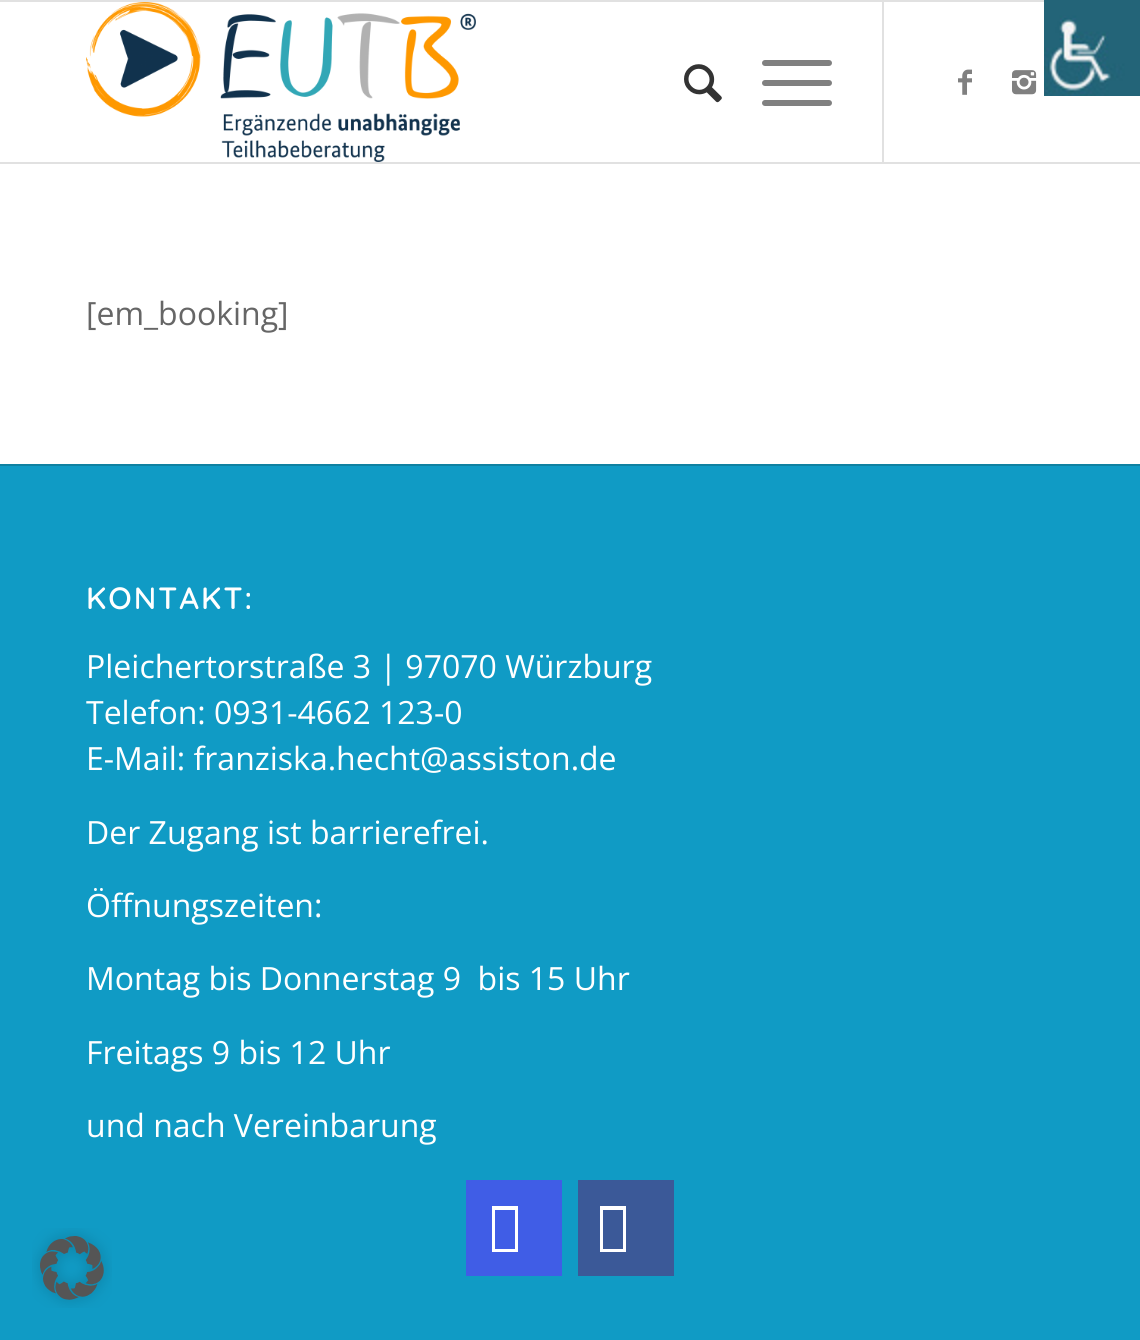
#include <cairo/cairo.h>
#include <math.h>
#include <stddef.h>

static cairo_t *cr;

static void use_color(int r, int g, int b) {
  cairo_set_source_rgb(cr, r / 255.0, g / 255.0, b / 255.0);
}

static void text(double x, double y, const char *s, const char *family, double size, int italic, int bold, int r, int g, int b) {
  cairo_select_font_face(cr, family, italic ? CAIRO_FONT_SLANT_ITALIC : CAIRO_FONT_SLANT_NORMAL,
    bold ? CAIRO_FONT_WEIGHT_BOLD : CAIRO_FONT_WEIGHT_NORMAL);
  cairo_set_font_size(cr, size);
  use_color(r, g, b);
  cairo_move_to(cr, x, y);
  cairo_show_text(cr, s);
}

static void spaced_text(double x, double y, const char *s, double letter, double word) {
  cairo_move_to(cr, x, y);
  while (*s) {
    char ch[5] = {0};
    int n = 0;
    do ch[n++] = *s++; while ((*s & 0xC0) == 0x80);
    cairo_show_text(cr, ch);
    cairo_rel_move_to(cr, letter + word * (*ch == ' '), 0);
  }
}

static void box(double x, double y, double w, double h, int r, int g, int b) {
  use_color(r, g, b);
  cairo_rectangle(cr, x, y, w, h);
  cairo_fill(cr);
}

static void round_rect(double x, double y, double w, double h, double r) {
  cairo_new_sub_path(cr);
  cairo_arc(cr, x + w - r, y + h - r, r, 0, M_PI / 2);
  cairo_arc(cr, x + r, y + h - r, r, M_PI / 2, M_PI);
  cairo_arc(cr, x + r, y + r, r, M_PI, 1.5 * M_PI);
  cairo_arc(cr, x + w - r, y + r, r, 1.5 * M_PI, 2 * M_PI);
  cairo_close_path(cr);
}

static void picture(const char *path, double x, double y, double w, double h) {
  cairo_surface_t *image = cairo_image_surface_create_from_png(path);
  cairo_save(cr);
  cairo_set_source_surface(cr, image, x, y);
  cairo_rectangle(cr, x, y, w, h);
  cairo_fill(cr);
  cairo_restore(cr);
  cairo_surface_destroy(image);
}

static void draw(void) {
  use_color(255, 255, 255);
  cairo_paint(cr);
  picture("img_01.png", 1044, 0, 96, 96);
  box(0, 0, 1044, 2, 225, 225, 225);
  box(0, 162, 1140, 2, 225, 225, 225);
  picture("img_02.png", 86, 2, 390, 160);
  box(882, 2, 2, 160, 225, 225, 225);
  picture("img_03.png", 684, 64, 38, 39);
  use_color(128, 128, 128);
  round_rect(762, 80, 70, 6, 3);
  cairo_fill(cr);
  round_rect(762, 60, 70, 6, 3);
  cairo_fill(cr);
  round_rect(762, 100, 70, 6, 3);
  cairo_fill(cr);
  picture("img_04.png", 958, 69, 14, 26);
  picture("img_05.png", 1012, 70, 25, 25);
  box(0, 466, 1140, 874, 16, 155, 197);
  box(0, 464, 1140, 2, 15, 129, 161);
  box(466, 1180, 96, 96, 64, 93, 230);
  use_color(255, 255, 255);
  cairo_new_path(cr);
  cairo_move_to(cr, 492, 1252);
  cairo_line_to(cr, 492, 1206);
  cairo_line_to(cr, 518, 1206);
  cairo_line_to(cr, 518, 1252);
  cairo_close_path(cr);
  cairo_move_to(cr, 495, 1249);
  cairo_line_to(cr, 515, 1249);
  cairo_line_to(cr, 515, 1210);
  cairo_line_to(cr, 495, 1210);
  cairo_close_path(cr);
  cairo_fill(cr);
  box(578, 1180, 96, 96, 59, 89, 152);
  use_color(255, 255, 255);
  cairo_new_path(cr);
  cairo_move_to(cr, 600, 1252);
  cairo_line_to(cr, 600, 1206);
  cairo_line_to(cr, 626, 1206);
  cairo_line_to(cr, 626, 1252);
  cairo_close_path(cr);
  cairo_move_to(cr, 603, 1249);
  cairo_line_to(cr, 623, 1249);
  cairo_line_to(cr, 623, 1210);
  cairo_line_to(cr, 603, 1210);
  cairo_close_path(cr);
  cairo_fill(cr);
  picture("img_06.png", 32, 1228, 80, 80);
  text(86, 325, "[em_booking]", "Open Sans", 32, 0, 0, 102, 102, 102);
  cairo_select_font_face(cr, "Quicksand SemiBold", CAIRO_FONT_SLANT_NORMAL, CAIRO_FONT_WEIGHT_NORMAL);
  cairo_set_font_size(cr, 30.75);
  use_color(255, 255, 255);
  spaced_text(86, 609, "KONTAKT:", 2, 0);
  text(86, 678, "Pleichertorstraße 3 | 97070 Würzburg", "Open Sans", 32, 0, 0, 255, 255, 255);
  cairo_save(cr);
  cairo_rectangle(cr, 86, 556, 968, 724);
  cairo_clip(cr);
  text(86, 724, "Telefon: 0931-4662 123-0", "Open Sans", 32, 0, 0, 255, 255, 255);
  cairo_restore(cr);
  text(86, 770, "E-Mail: franziska.hecht@assiston.de", "Open Sans", 32, 0, 0, 255, 255, 255);
  text(86, 844, "Der Zugang ist barrierefrei.", "Open Sans", 32, 0, 0, 255, 255, 255);
  text(86, 917, "Öffnungszeiten:", "Open Sans", 32, 0, 0, 255, 255, 255);
  text(86, 990, "Montag bis Donnerstag 9  bis 15 Uhr", "Open Sans", 32, 0, 0, 255, 255, 255);
  text(86, 1064, "Freitags 9 bis 12 Uhr", "Open Sans", 32, 0, 0, 255, 255, 255);
  text(86, 1137, "und nach Vereinbarung", "Open Sans", 32, 0, 0, 255, 255, 255);
}

int main(void) {
  cairo_surface_t *surface = cairo_image_surface_create(CAIRO_FORMAT_RGB24, 1140, 1340);
  cr = cairo_create(surface);
  cairo_font_options_t *options = cairo_font_options_create();
  cairo_font_options_set_hint_metrics(options, CAIRO_HINT_METRICS_OFF);
  cairo_font_options_set_hint_style(options, CAIRO_HINT_STYLE_NONE);
  cairo_set_font_options(cr, options);
  cairo_set_miter_limit(cr, 4);
  draw();
  cairo_surface_write_to_png(surface, "out.png");
  cairo_font_options_destroy(options);
  cairo_destroy(cr);
  cairo_surface_destroy(surface);
  return 0;
}
